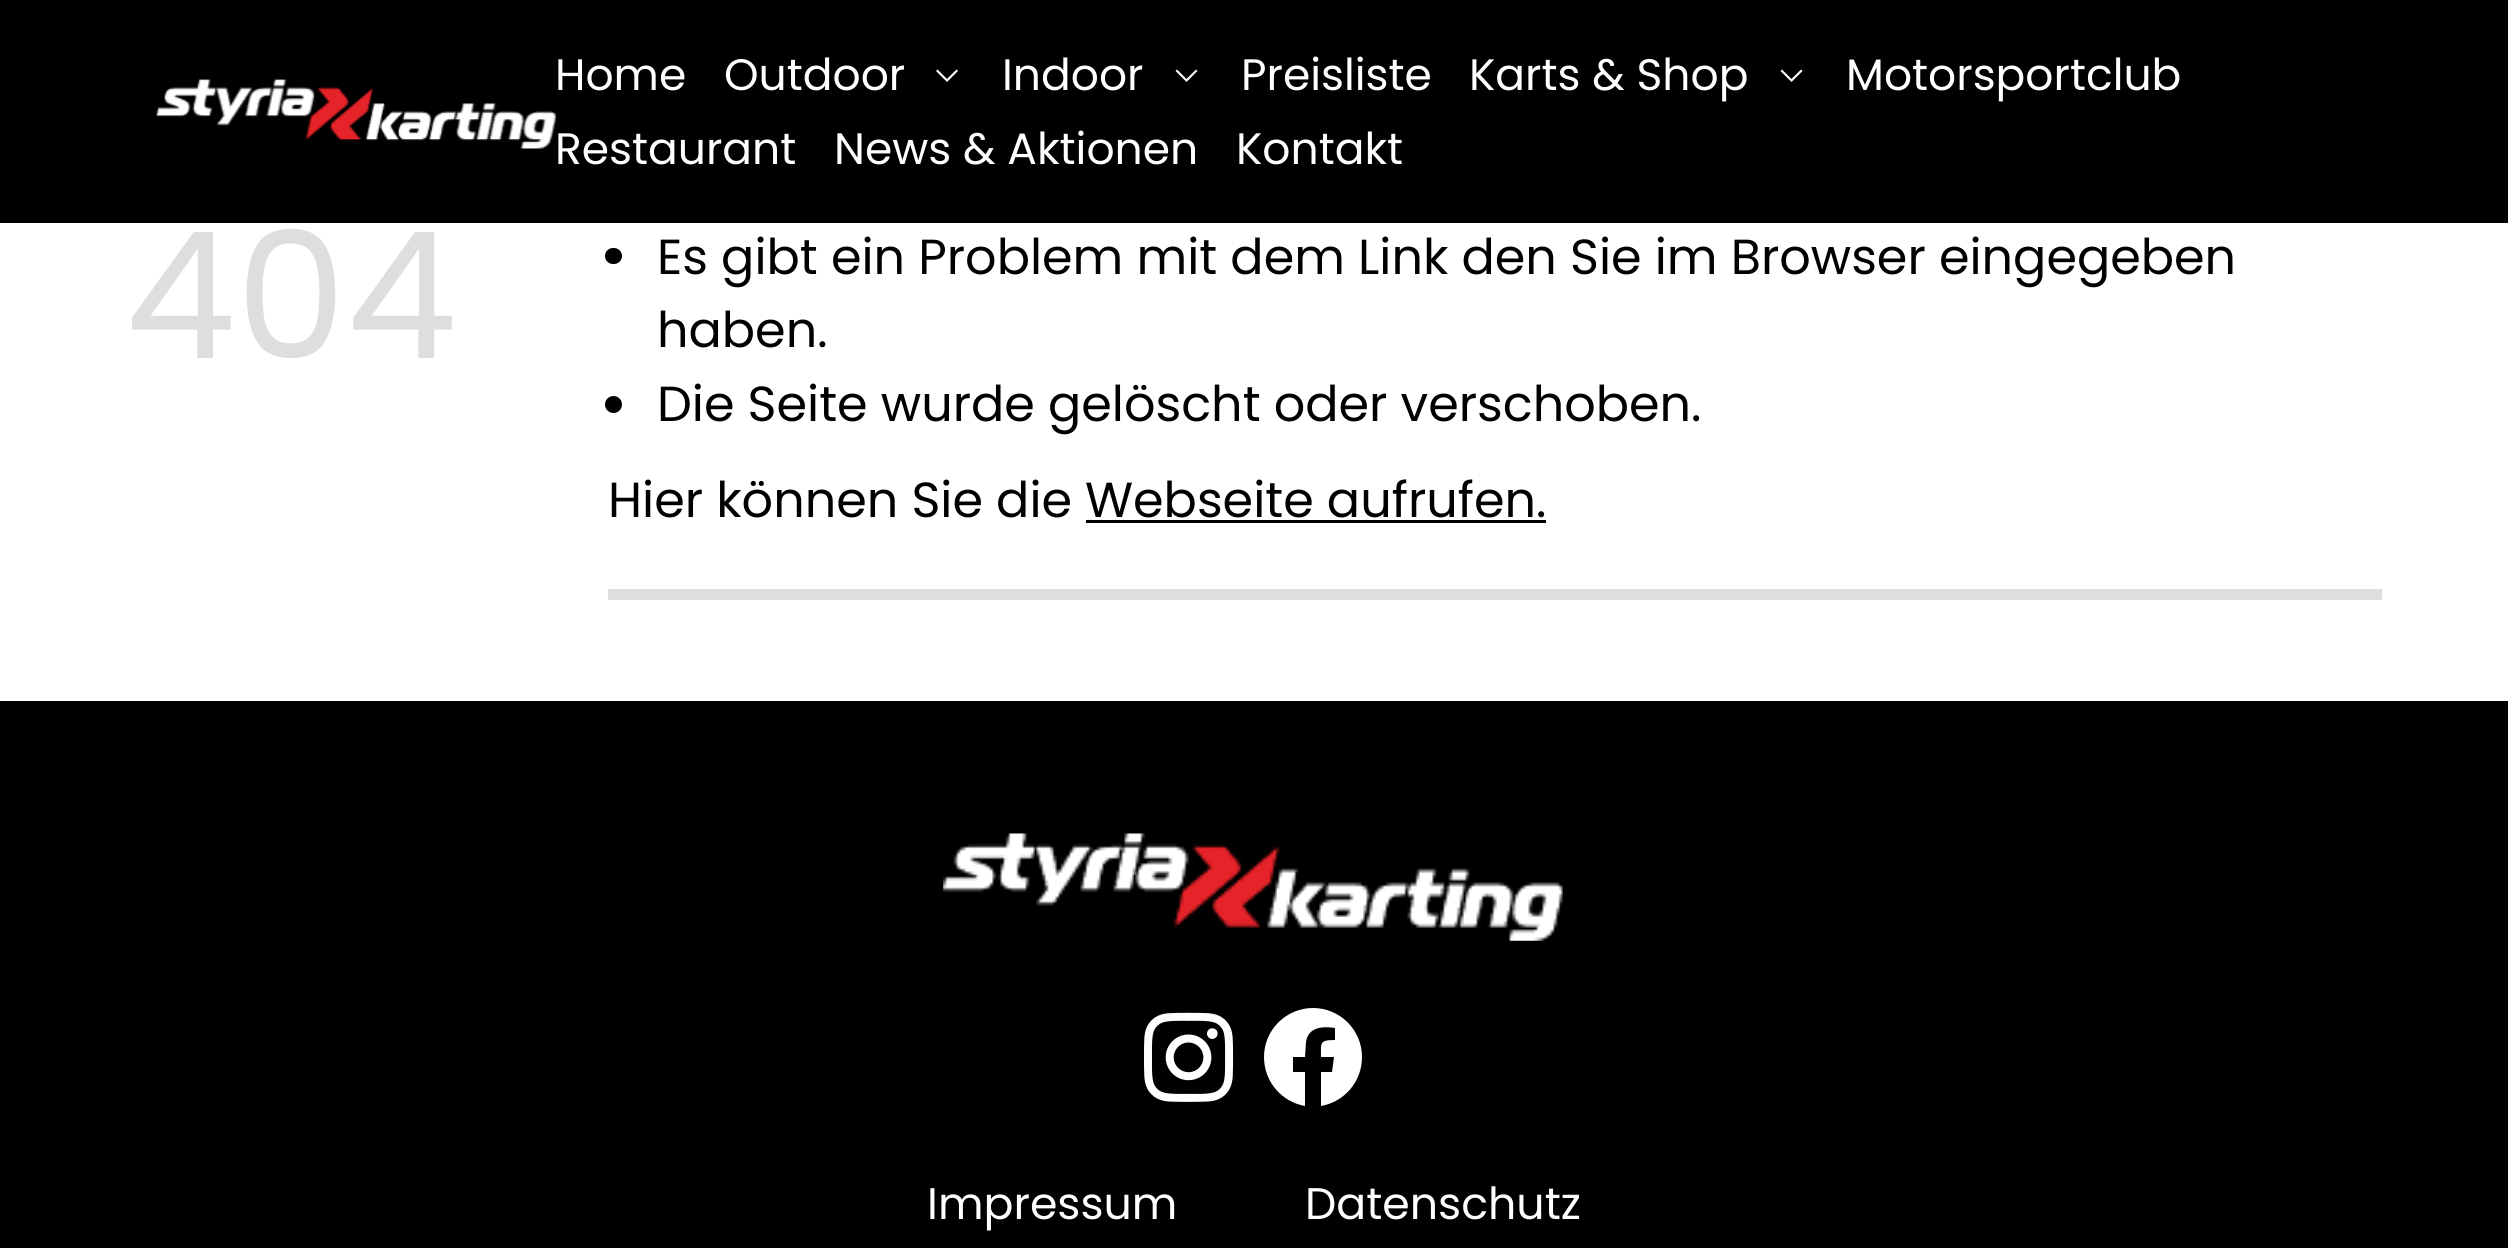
#include <cairo/cairo.h>
#include <math.h>
#include <stddef.h>

static cairo_t *cr;

static void use_color(int r, int g, int b) {
  cairo_set_source_rgb(cr, r / 255.0, g / 255.0, b / 255.0);
}

static void text(double x, double y, const char *s, const char *family, double size, int italic, int bold, int r, int g, int b) {
  cairo_select_font_face(cr, family, italic ? CAIRO_FONT_SLANT_ITALIC : CAIRO_FONT_SLANT_NORMAL,
    bold ? CAIRO_FONT_WEIGHT_BOLD : CAIRO_FONT_WEIGHT_NORMAL);
  cairo_set_font_size(cr, size);
  use_color(r, g, b);
  cairo_move_to(cr, x, y);
  cairo_show_text(cr, s);
}

static void box(double x, double y, double w, double h, int r, int g, int b) {
  use_color(r, g, b);
  cairo_rectangle(cr, x, y, w, h);
  cairo_fill(cr);
}

static void round_rect(double x, double y, double w, double h, double r) {
  cairo_new_sub_path(cr);
  cairo_arc(cr, x + w - r, y + h - r, r, 0, M_PI / 2);
  cairo_arc(cr, x + r, y + h - r, r, M_PI / 2, M_PI);
  cairo_arc(cr, x + r, y + r, r, M_PI, 1.5 * M_PI);
  cairo_arc(cr, x + w - r, y + r, r, 1.5 * M_PI, 2 * M_PI);
  cairo_close_path(cr);
}

static void picture(const char *path, double x, double y, double w, double h) {
  cairo_surface_t *image = cairo_image_surface_create_from_png(path);
  cairo_save(cr);
  cairo_set_source_surface(cr, image, x, y);
  cairo_rectangle(cr, x, y, w, h);
  cairo_fill(cr);
  cairo_restore(cr);
  cairo_surface_destroy(image);
}

static void draw(void) {
  use_color(255, 255, 255);
  cairo_paint(cr);
  box(0, 0, 2508, 223, 0, 0, 0);
  picture("img_01.png", 156, 79, 400, 70);
  use_color(255, 255, 255);
  cairo_new_path(cr);
  cairo_move_to(cr, 947, 82);
  cairo_line_to(cr, 936, 71);
  cairo_line_to(cr, 937.5, 69.5);
  cairo_line_to(cr, 947, 79);
  cairo_line_to(cr, 956.5, 69.5);
  cairo_line_to(cr, 958, 71);
  cairo_close_path(cr);
  cairo_fill(cr);
  cairo_new_path(cr);
  cairo_move_to(cr, 1186.5, 82);
  cairo_line_to(cr, 1175.5, 71);
  cairo_line_to(cr, 1177, 69.5);
  cairo_line_to(cr, 1186.5, 79);
  cairo_line_to(cr, 1196, 69.5);
  cairo_line_to(cr, 1197.5, 71);
  cairo_close_path(cr);
  cairo_fill(cr);
  cairo_new_path(cr);
  cairo_move_to(cr, 1791.5, 82);
  cairo_line_to(cr, 1780.5, 71);
  cairo_line_to(cr, 1782, 69.5);
  cairo_line_to(cr, 1791.5, 79);
  cairo_line_to(cr, 1801, 69.5);
  cairo_line_to(cr, 1802.5, 71);
  cairo_close_path(cr);
  cairo_fill(cr);
  box(608, 589, 1774, 11, 222, 222, 222);
  use_color(0, 0, 0);
  round_rect(605, 248, 17, 16, 8);
  cairo_fill(cr);
  cairo_arc(cr, 613.5, 404.5, 8.5, 0, 2 * M_PI);
  cairo_fill(cr);
  box(1086, 520, 460, 3, 0, 0, 0);
  box(0, 701, 2508, 547, 0, 0, 0);
  picture("img_02.png", 943, 833, 620, 108);
  picture("img_03.png", 1144, 1012, 90, 90);
  use_color(255, 255, 255);
  cairo_new_path(cr);
  cairo_move_to(cr, 1362, 1057);
  cairo_curve_to(cr, 1362, 1030, 1340, 1008, 1313, 1008);
  cairo_curve_to(cr, 1286, 1008, 1264, 1030, 1264, 1057);
  cairo_curve_to(cr, 1264, 1082, 1282, 1102, 1305, 1106);
  cairo_line_to(cr, 1305, 1072);
  cairo_line_to(cr, 1293, 1072);
  cairo_line_to(cr, 1293, 1057);
  cairo_line_to(cr, 1305, 1057);
  cairo_line_to(cr, 1306, 1042);
  cairo_curve_to(cr, 1308, 1027, 1323, 1026, 1335, 1028);
  cairo_line_to(cr, 1335, 1040);
  cairo_curve_to(cr, 1319, 1040, 1321, 1043, 1321, 1057);
  cairo_line_to(cr, 1334, 1057);
  cairo_line_to(cr, 1332, 1072);
  cairo_line_to(cr, 1321, 1072);
  cairo_line_to(cr, 1321, 1106);
  cairo_curve_to(cr, 1344, 1102, 1362, 1082, 1362, 1057);
  cairo_close_path(cr);
  cairo_fill(cr);
  text(555, 90, "Home", "Poppins", 44, 0, 0, 255, 255, 255);
  text(724, 90, "Outdoor", "Poppins", 44, 0, 0, 255, 255, 255);
  text(1002, 90, "Indoor", "Poppins", 44, 0, 0, 255, 255, 255);
  text(1241, 90, "Preisliste", "Poppins", 44, 0, 0, 255, 255, 255);
  text(1469, 90, "Karts & Shop", "Poppins", 44, 0, 0, 255, 255, 255);
  text(1846, 90, "Motorsportclub", "Poppins", 44, 0, 0, 255, 255, 255);
  text(555, 164, "Restaurant", "Poppins", 44, 0, 0, 255, 255, 255);
  text(834, 164, "News & Aktionen", "Poppins", 44, 0, 0, 255, 255, 255);
  text(1236, 164, "Kontakt", "Poppins", 44, 0, 0, 255, 255, 255);
  text(125, 358, "404", "Poppins", 176, 0, 0, 222, 222, 222);
  text(657, 274, "Es gibt ein Problem mit dem Link den Sie im Browser eingegeben", "Poppins", 49.25, 0, 0, 0, 0, 0);
  text(657, 347, "haben.", "Poppins", 49.25, 0, 0, 0, 0, 0);
  text(657, 421, "Die Seite wurde gelöscht oder verschoben.", "Poppins", 49.25, 0, 0, 0, 0, 0);
  text(608, 517, "Hier können Sie die", "Poppins", 49.25, 0, 0, 0, 0, 0);
  text(1085, 517, "Webseite aufrufen.", "Poppins", 49.25, 0, 0, 0, 0, 0);
  text(927, 1219, "Impressum", "Poppins", 44.25, 0, 0, 255, 255, 255);
  text(1305, 1219, "Datenschutz", "Poppins", 44.25, 0, 0, 255, 255, 255);
}

int main(void) {
  cairo_surface_t *surface = cairo_image_surface_create(CAIRO_FORMAT_RGB24, 2508, 1248);
  cr = cairo_create(surface);
  cairo_font_options_t *options = cairo_font_options_create();
  cairo_font_options_set_hint_metrics(options, CAIRO_HINT_METRICS_OFF);
  cairo_font_options_set_hint_style(options, CAIRO_HINT_STYLE_NONE);
  cairo_set_font_options(cr, options);
  cairo_set_miter_limit(cr, 4);
  draw();
  cairo_surface_write_to_png(surface, "out.png");
  cairo_font_options_destroy(options);
  cairo_destroy(cr);
  cairo_surface_destroy(surface);
  return 0;
}
